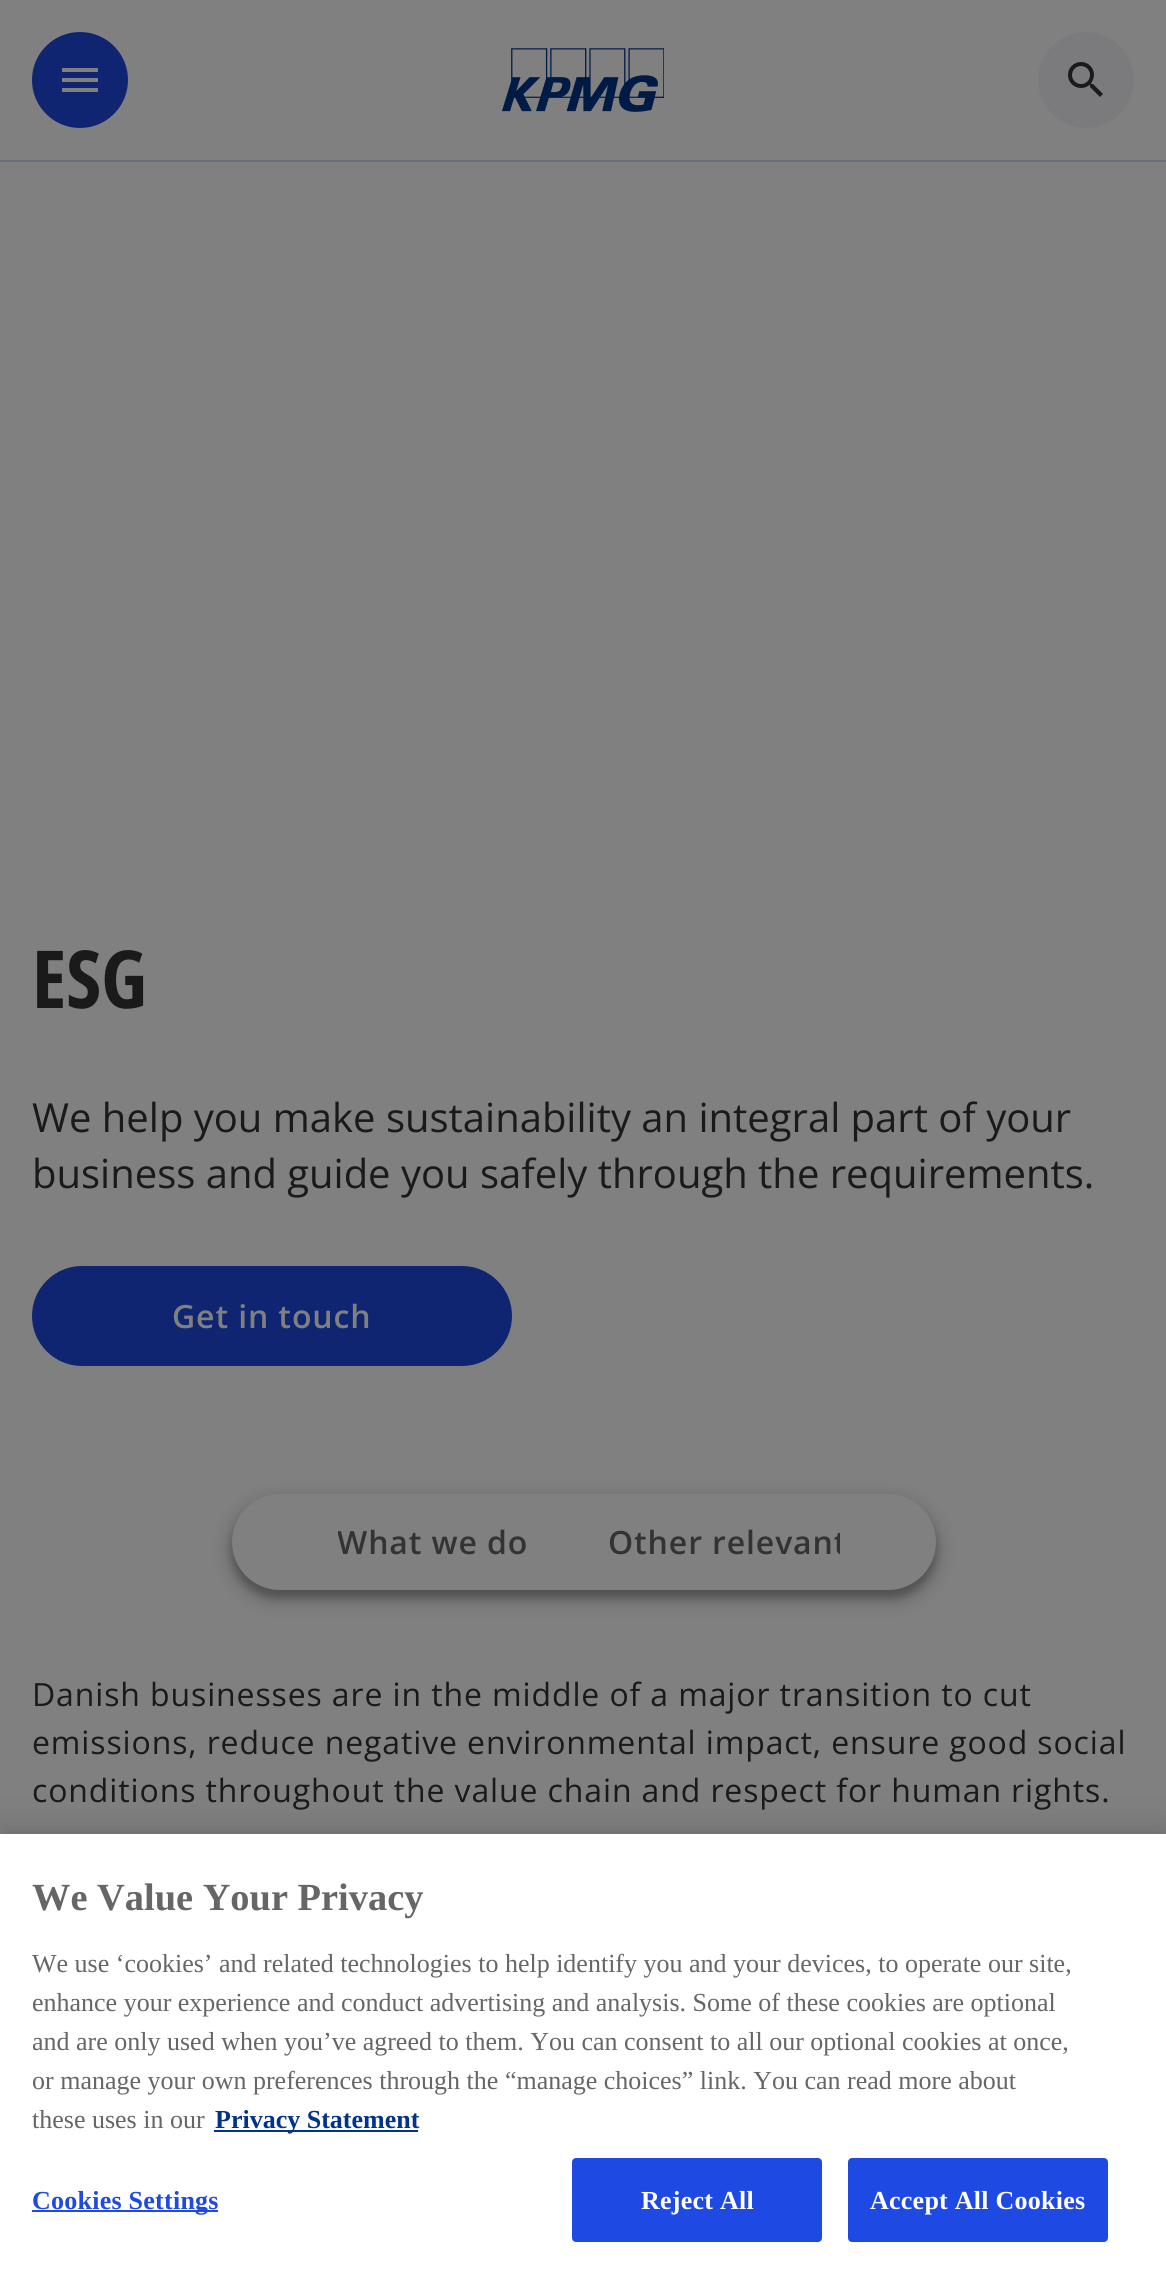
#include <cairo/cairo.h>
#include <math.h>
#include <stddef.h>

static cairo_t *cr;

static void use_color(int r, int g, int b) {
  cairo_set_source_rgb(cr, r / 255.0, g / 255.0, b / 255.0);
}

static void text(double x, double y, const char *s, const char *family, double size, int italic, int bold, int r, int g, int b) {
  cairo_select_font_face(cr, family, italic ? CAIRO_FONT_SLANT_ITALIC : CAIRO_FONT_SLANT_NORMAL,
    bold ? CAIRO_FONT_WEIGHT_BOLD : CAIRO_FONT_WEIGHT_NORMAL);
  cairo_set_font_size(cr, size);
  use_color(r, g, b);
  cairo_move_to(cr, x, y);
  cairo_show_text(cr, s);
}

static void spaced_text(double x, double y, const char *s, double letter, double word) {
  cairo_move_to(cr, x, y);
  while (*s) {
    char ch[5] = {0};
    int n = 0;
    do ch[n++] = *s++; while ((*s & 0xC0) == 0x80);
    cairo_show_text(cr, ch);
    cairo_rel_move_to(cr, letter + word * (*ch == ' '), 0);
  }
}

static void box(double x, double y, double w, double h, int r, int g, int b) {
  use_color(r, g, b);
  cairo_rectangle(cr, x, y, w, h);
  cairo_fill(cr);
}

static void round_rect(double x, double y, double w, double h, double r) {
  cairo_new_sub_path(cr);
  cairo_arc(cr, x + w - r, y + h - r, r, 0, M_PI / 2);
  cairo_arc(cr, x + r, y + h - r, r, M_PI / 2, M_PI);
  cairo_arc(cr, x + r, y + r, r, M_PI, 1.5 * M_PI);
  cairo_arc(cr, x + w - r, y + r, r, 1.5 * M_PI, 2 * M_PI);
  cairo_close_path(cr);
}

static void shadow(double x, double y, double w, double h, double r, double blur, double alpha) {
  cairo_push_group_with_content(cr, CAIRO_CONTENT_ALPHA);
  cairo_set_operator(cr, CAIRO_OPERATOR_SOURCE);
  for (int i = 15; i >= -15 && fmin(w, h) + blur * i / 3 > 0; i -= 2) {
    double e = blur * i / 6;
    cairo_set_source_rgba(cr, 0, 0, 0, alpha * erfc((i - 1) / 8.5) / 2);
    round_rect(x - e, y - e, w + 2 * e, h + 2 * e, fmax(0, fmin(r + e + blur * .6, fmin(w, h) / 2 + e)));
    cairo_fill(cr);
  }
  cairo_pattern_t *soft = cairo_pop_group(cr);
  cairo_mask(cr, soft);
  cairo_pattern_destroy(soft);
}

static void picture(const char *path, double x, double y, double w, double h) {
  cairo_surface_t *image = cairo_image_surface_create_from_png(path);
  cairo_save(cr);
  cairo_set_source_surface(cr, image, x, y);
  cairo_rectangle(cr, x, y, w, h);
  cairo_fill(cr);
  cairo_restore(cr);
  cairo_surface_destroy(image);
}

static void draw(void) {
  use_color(128, 128, 128);
  cairo_paint(cr);
  box(0, 160, 1166, 2, 105, 110, 125);
  use_color(15, 37, 113);
  cairo_arc(cr, 80, 80, 48, 0, 2 * M_PI);
  cairo_fill(cr);
  use_color(128, 128, 128);
  cairo_new_path(cr);
  cairo_move_to(cr, 62, 92);
  cairo_line_to(cr, 98, 92);
  cairo_line_to(cr, 98, 88);
  cairo_line_to(cr, 62, 88);
  cairo_close_path(cr);
  cairo_move_to(cr, 62, 82);
  cairo_line_to(cr, 98, 82);
  cairo_line_to(cr, 98, 78);
  cairo_line_to(cr, 62, 78);
  cairo_close_path(cr);
  cairo_move_to(cr, 62, 68);
  cairo_line_to(cr, 62, 72);
  cairo_line_to(cr, 98, 72);
  cairo_line_to(cr, 98, 68);
  cairo_close_path(cr);
  cairo_fill(cr);
  picture("img_01.png", 502, 48, 162, 64);
  use_color(123, 123, 125);
  cairo_arc(cr, 1086, 80, 48, 0, 2 * M_PI);
  cairo_fill(cr);
  picture("img_02.png", 1068, 62, 35, 35);
  use_color(15, 37, 113);
  round_rect(33, 1267, 478, 98, 49);
  cairo_fill_preserve(cr);
  cairo_stroke(cr);
  use_color(0, 0, 0);
  shadow(232, 1502, 704, 96, 48, 4, 0.25);
  shadow(226, 1496, 716, 108, 54, 8, 0.15);
  use_color(128, 128, 128);
  round_rect(232, 1494, 704, 96, 48);
  cairo_fill(cr);
  use_color(0, 0, 0);
  shadow(0, 1834, 1166, 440, 0, 18, 0.2);
  box(0, 1834, 1166, 439, 255, 255, 255);
  box(214, 2130, 204, 2, 0, 51, 141);
  box(32, 2210, 186, 2, 30, 73, 226);
  round_rect(573, 2159, 248, 82, 3);
  cairo_fill_preserve(cr);
  cairo_stroke(cr);
  round_rect(849, 2159, 258, 82, 3);
  cairo_fill_preserve(cr);
  cairo_stroke(cr);
  text(32, 1008, "ESG", "Open Sans Condensed", 80, 0, 1, 26, 26, 26);
  text(32, 1132, "We help you make sustainability an integral part of your", "Open Sans", 40, 0, 0, 26, 26, 26);
  text(32, 1188, "business and guide you safely through the requirements.", "Open Sans", 40, 0, 0, 26, 26, 26);
  cairo_select_font_face(cr, "Open Sans SemiBold", CAIRO_FONT_SLANT_NORMAL, CAIRO_FONT_WEIGHT_NORMAL);
  cairo_set_font_size(cr, 32);
  use_color(128, 128, 128);
  spaced_text(172, 1328, "Get in touch", 0.88, 0);
  cairo_save(cr);
  cairo_rectangle(cr, 338, 1518, 190, 48);
  cairo_clip(cr);
  use_color(51, 51, 51);
  spaced_text(337, 1554, "What we do", 0.88, 0);
  cairo_restore(cr);
  cairo_save(cr);
  cairo_rectangle(cr, 608, 1518, 232, 48);
  cairo_clip(cr);
  use_color(51, 51, 51);
  spaced_text(608, 1554, "Other relevant", 0.88, 0);
  cairo_restore(cr);
  cairo_select_font_face(cr, "Open Sans", CAIRO_FONT_SLANT_NORMAL, CAIRO_FONT_WEIGHT_NORMAL);
  use_color(26, 26, 26);
  spaced_text(32, 1706, "Danish businesses are in the middle of a major transition to cut", 0.88, 0);
  spaced_text(32, 1754, "emissions, reduce negative environmental impact, ensure good social", 0.88, 0);
  spaced_text(32, 1802, "conditions throughout the value chain and respect for human rights.", 0.88, 0);
  text(32, 1910, "We Value Your Privacy", "Liberation Serif", 38.4, 0, 1, 102, 102, 102);
  text(32, 1972, "We use ‘cookies’ and related technologies to help identify you and your devices, to operate our site,", "Liberation Serif", 26, 0, 0, 102, 102, 102);
  text(32, 2011, "enhance your experience and conduct advertising and analysis. Some of these cookies are optional", "Liberation Serif", 26, 0, 0, 102, 102, 102);
  text(32, 2050, "and are only used when you’ve agreed to them. You can consent to all our optional cookies at once,", "Liberation Serif", 26, 0, 0, 102, 102, 102);
  text(32, 2089, "or manage your own preferences through the “manage choices” link. You can read more about", "Liberation Serif", 26, 0, 0, 102, 102, 102);
  text(32, 2128, "these uses in our", "Liberation Serif", 26, 0, 0, 102, 102, 102);
  text(215, 2128, "Privacy Statement", "Liberation Serif", 26, 0, 1, 0, 51, 141);
  use_color(30, 73, 226);
  spaced_text(32, 2209, "Cookies Settings", 0.25, 0);
  use_color(255, 255, 255);
  spaced_text(641, 2209, "Reject All", 0.25, 0);
  spaced_text(870, 2209, "Accept All Cookies", 0.25, 0);
}

int main(void) {
  cairo_surface_t *surface = cairo_image_surface_create(CAIRO_FORMAT_RGB24, 1166, 2273);
  cr = cairo_create(surface);
  cairo_font_options_t *options = cairo_font_options_create();
  cairo_font_options_set_hint_metrics(options, CAIRO_HINT_METRICS_OFF);
  cairo_font_options_set_hint_style(options, CAIRO_HINT_STYLE_NONE);
  cairo_set_font_options(cr, options);
  cairo_set_miter_limit(cr, 4);
  draw();
  cairo_surface_write_to_png(surface, "out.png");
  cairo_font_options_destroy(options);
  cairo_destroy(cr);
  cairo_surface_destroy(surface);
  return 0;
}
